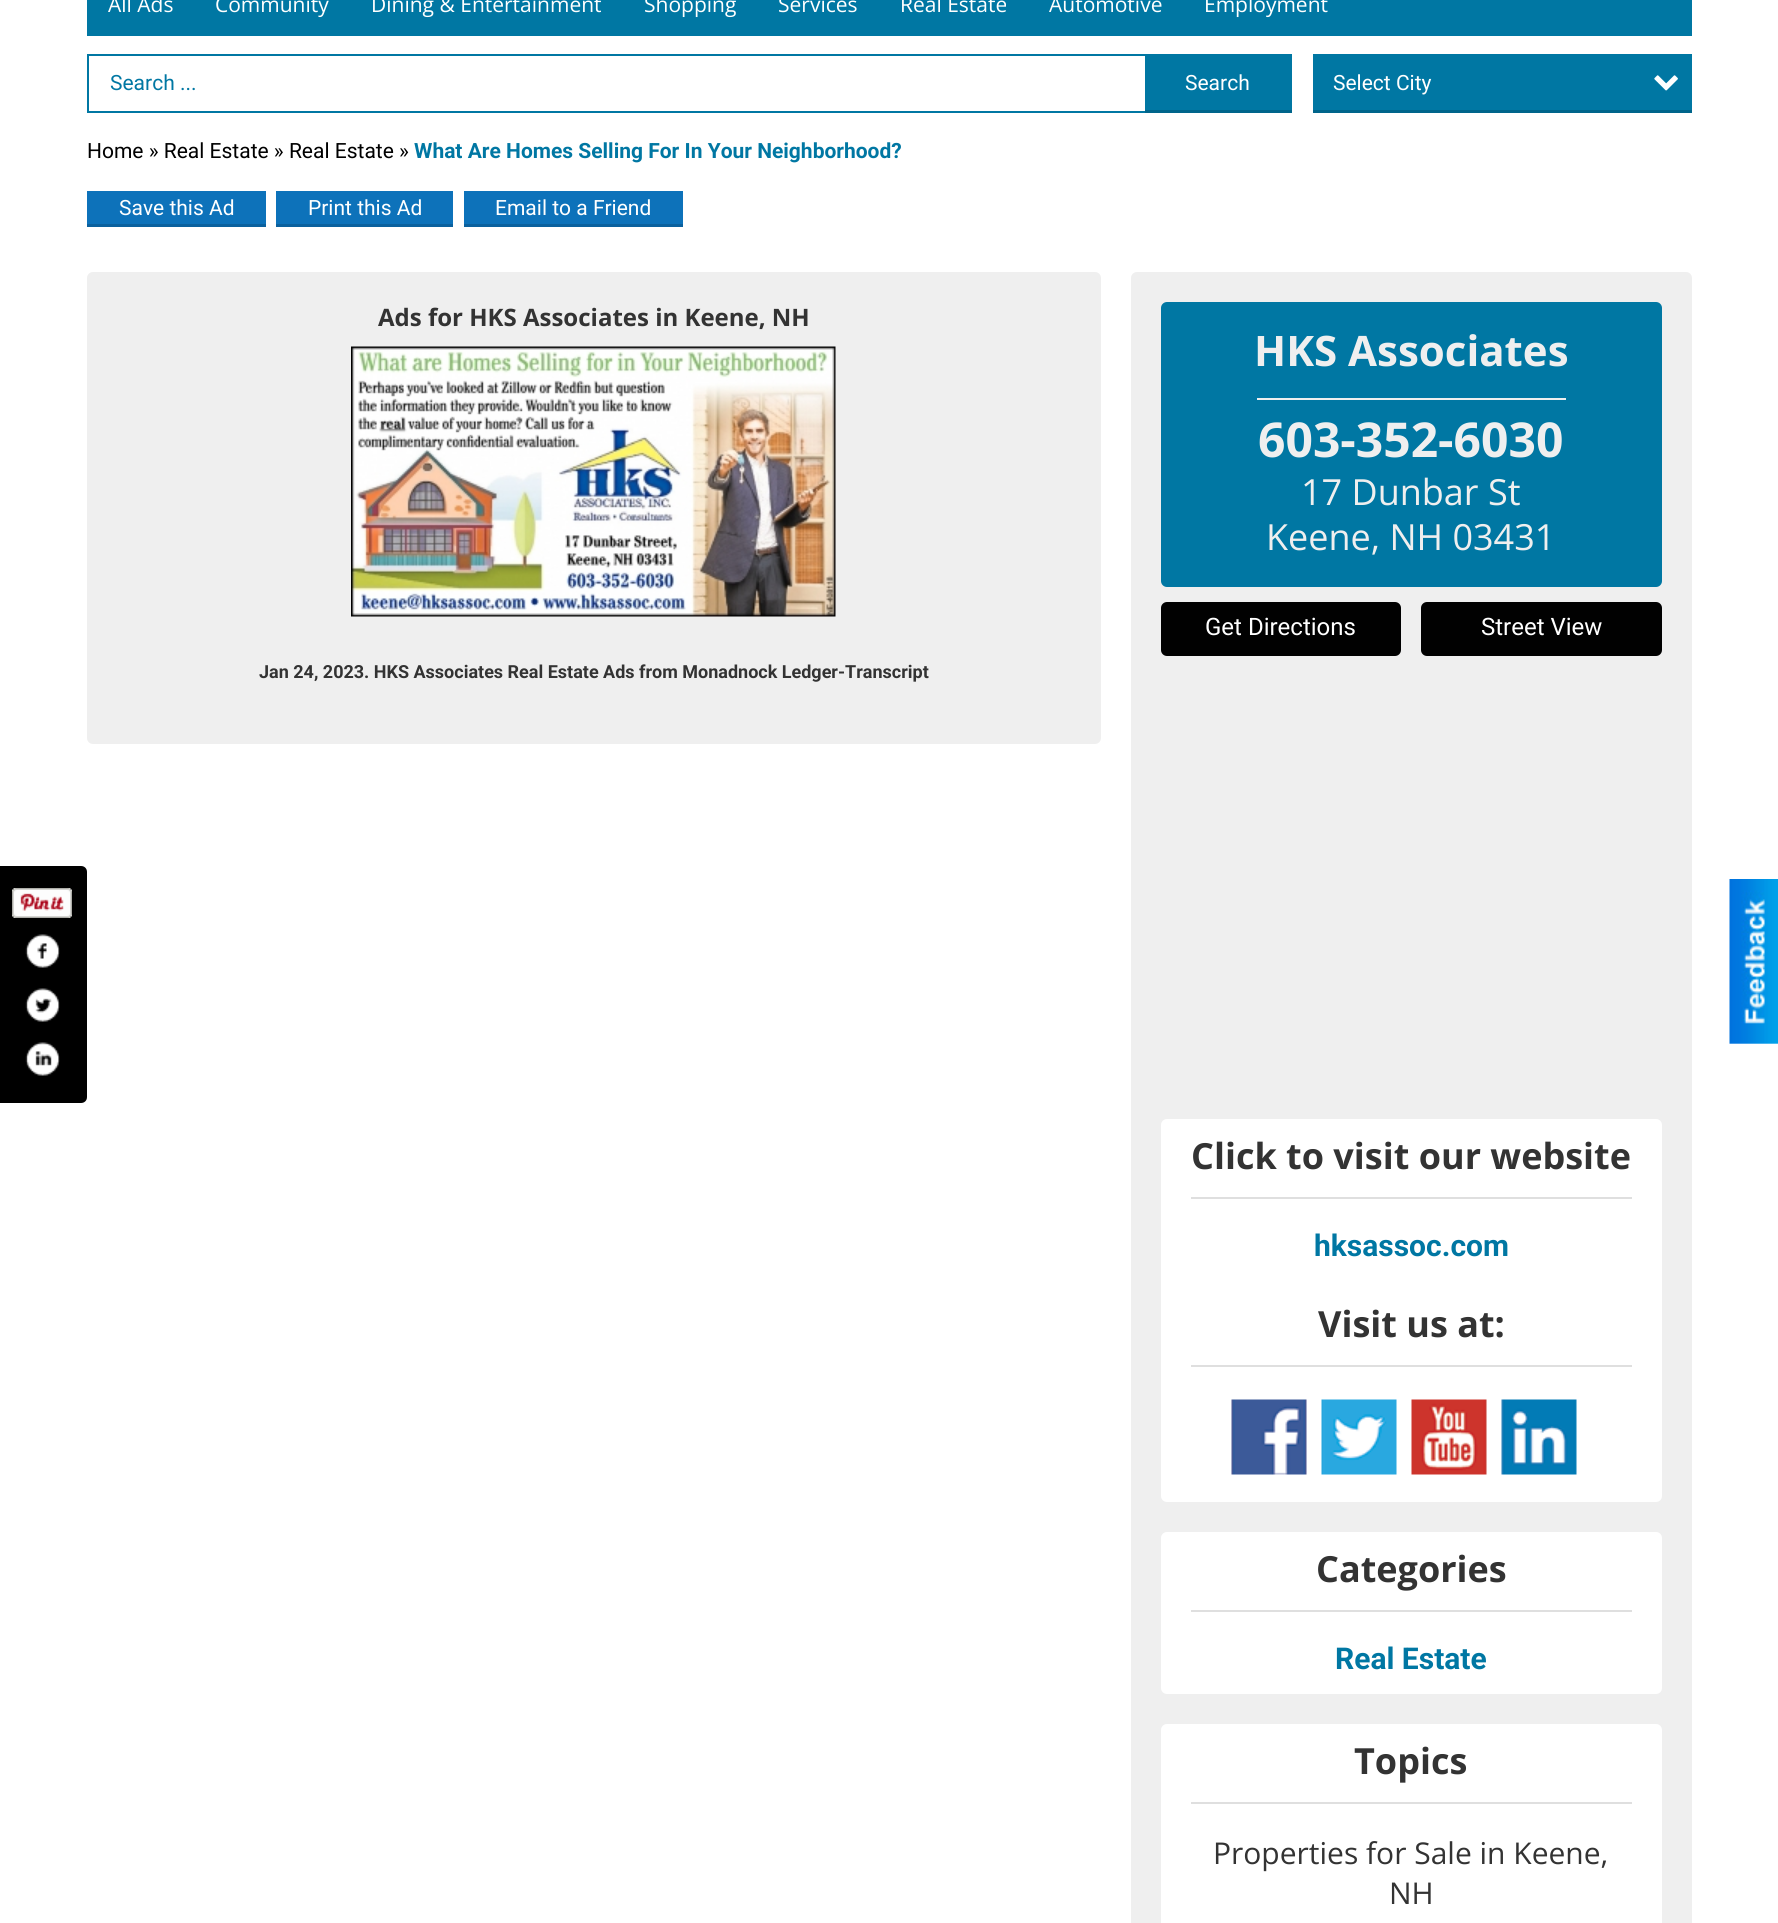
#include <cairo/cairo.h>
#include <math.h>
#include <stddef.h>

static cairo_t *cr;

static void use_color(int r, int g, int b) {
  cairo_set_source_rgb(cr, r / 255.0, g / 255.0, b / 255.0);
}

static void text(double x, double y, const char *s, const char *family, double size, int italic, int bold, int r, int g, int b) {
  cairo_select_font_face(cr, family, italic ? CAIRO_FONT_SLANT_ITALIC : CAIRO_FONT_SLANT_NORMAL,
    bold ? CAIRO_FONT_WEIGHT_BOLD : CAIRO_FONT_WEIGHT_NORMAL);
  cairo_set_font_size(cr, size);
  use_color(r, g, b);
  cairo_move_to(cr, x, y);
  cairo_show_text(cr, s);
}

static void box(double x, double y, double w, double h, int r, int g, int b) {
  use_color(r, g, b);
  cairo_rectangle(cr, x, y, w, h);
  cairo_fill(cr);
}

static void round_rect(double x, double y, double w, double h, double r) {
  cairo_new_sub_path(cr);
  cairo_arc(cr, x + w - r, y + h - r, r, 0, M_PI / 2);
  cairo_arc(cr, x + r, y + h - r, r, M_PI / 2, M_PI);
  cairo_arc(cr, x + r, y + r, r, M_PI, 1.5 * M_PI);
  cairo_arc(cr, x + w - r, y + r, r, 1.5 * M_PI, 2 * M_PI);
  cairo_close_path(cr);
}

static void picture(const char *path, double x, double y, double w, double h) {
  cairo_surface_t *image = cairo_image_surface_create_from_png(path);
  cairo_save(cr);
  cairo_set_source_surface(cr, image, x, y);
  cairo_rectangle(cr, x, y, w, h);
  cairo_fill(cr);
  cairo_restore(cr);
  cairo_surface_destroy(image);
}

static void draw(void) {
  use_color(255, 255, 255);
  cairo_paint(cr);
  use_color(0, 0, 0);
  cairo_new_path(cr);
  cairo_move_to(cr, 0, 866);
  cairo_line_to(cr, 81, 866);
  cairo_curve_to(cr, 84.5, 866, 87, 868.5, 87, 872);
  cairo_line_to(cr, 87, 1097);
  cairo_curve_to(cr, 87, 1100.5, 84.5, 1103, 81, 1103);
  cairo_line_to(cr, 0, 1103);
  cairo_close_path(cr);
  cairo_fill(cr);
  picture("img_01.png", 12, 888, 60, 30);
  picture("img_02.png", 25, 934, 35, 34);
  picture("img_03.png", 25, 988, 35, 34);
  picture("img_04.png", 25, 1042, 35, 34);
  box(87, 0, 1605, 36, 0, 119, 163);
  cairo_rectangle(cr, 88, 55, 1203, 57);
  cairo_stroke(cr);
  box(1145, 56, 145, 54, 0, 119, 163);
  box(1145, 110, 147, 3, 0, 101, 139);
  box(1313, 54, 379, 56, 0, 119, 163);
  box(1313, 110, 379, 3, 0, 101, 139);
  picture("img_05.png", 1654, 75, 24, 16);
  box(87, 191, 179, 33, 13, 114, 186);
  box(87, 224, 179, 3, 11, 97, 158);
  box(276, 191, 177, 33, 13, 114, 186);
  box(276, 224, 177, 3, 11, 97, 158);
  box(464, 191, 219, 33, 13, 114, 186);
  box(464, 224, 219, 3, 11, 97, 158);
  use_color(239, 239, 239);
  round_rect(87, 272, 1014, 472, 6);
  cairo_fill(cr);
  picture("img_06.png", 351, 346, 485, 271);
  round_rect(1131, 272, 561, 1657, 6);
  cairo_fill(cr);
  use_color(0, 119, 163);
  round_rect(1161, 302, 501, 285, 6);
  cairo_fill(cr);
  box(1257, 398, 309, 2, 239, 239, 239);
  use_color(1, 1, 1);
  round_rect(1161, 602, 240, 54, 6);
  cairo_fill(cr);
  round_rect(1421, 602, 241, 54, 6);
  cairo_fill(cr);
  use_color(255, 255, 255);
  round_rect(1161, 1119, 501, 383, 6);
  cairo_fill(cr);
  box(1191, 1197, 441, 2, 223, 223, 223);
  box(1191, 1365, 441, 2, 223, 223, 223);
  picture("img_07.png", 1231, 1399, 76, 76);
  picture("img_08.png", 1321, 1399, 76, 76);
  picture("img_09.png", 1411, 1399, 76, 76);
  picture("img_10.png", 1501, 1399, 76, 76);
  use_color(255, 255, 255);
  round_rect(1161, 1532, 501, 162, 6);
  cairo_fill(cr);
  box(1191, 1610, 441, 2, 223, 223, 223);
  use_color(255, 255, 255);
  round_rect(1161, 1724, 501, 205, 6);
  cairo_fill(cr);
  box(1191, 1802, 441, 2, 223, 223, 223);
  picture("img_11.png", 1729, 879, 49, 165);
  text(108, 12, "All Ads", "Open Sans", 21, 0, 0, 255, 255, 255);
  text(215, 12, "Community", "Open Sans", 21, 0, 0, 255, 255, 255);
  text(371, 12, "Dining & Entertainment", "Open Sans", 21, 0, 0, 255, 255, 255);
  text(644, 12, "Shopping", "Open Sans", 21, 0, 0, 255, 255, 255);
  text(778, 12, "Services", "Open Sans", 21, 0, 0, 255, 255, 255);
  text(900, 12, "Real Estate", "Open Sans", 21, 0, 0, 255, 255, 255);
  text(1049, 12, "Automotive", "Open Sans", 21, 0, 0, 255, 255, 255);
  text(1204, 12, "Employment", "Open Sans", 21, 0, 0, 255, 255, 255);
  text(110, 90, "Search ...", "Roboto", 21, 0, 0, 0, 119, 163);
  text(1185, 90, "Search", "Roboto", 21, 0, 0, 255, 255, 255);
  text(1333, 90, "Select City", "Roboto", 21, 0, 0, 255, 255, 255);
  text(87, 158, "Home » Real Estate » Real Estate »", "Roboto", 21, 0, 0, 0, 0, 0);
  text(414, 158, "What Are Homes Selling For In Your Neighborhood?", "Roboto", 21, 0, 1, 0, 119, 163);
  text(119, 215, "Save this Ad", "Roboto", 21, 0, 0, 255, 255, 255);
  text(308, 215, "Print this Ad", "Roboto", 21, 0, 0, 255, 255, 255);
  text(495, 215, "Email to a Friend", "Roboto", 21, 0, 0, 255, 255, 255);
  text(378, 326, "Ads for HKS Associates in Keene, NH", "Open Sans", 24, 0, 1, 51, 51, 51);
  text(259, 678, "Jan 24, 2023. HKS Associates Real Estate Ads from Monadnock Ledger-Transcript", "Roboto", 18, 0, 1, 51, 51, 51);
  text(1254, 366, "HKS Associates", "Open Sans", 42, 0, 1, 239, 239, 239);
  text(1258, 457, "603-352-6030", "Open Sans", 48, 0, 1, 239, 239, 239);
  text(1301, 505, "17 Dunbar St", "Open Sans", 36, 0, 0, 239, 239, 239);
  text(1266, 550, "Keene, NH 03431", "Open Sans", 36, 0, 0, 239, 239, 239);
  text(1205, 635, "Get Directions", "Roboto", 24, 0, 0, 255, 255, 255);
  text(1481, 635, "Street View", "Roboto", 24, 0, 0, 255, 255, 255);
  text(1191, 1169, "Click to visit our website", "Open Sans", 36, 0, 1, 51, 51, 51);
  text(1314, 1256, "hksassoc.com", "Roboto", 30, 0, 1, 0, 119, 163);
  text(1318, 1337, "Visit us at:", "Open Sans", 36, 0, 1, 51, 51, 51);
  text(1316, 1582, "Categories", "Open Sans", 36, 0, 1, 51, 51, 51);
  text(1335, 1669, "Real Estate", "Roboto", 30, 0, 1, 0, 119, 163);
  text(1354, 1774, "Topics", "Open Sans", 36, 0, 1, 51, 51, 51);
  text(1213, 1864, "Properties for Sale in Keene,", "Open Sans", 30, 0, 0, 51, 51, 51);
  text(1389, 1904, "NH", "Open Sans", 30, 0, 0, 51, 51, 51);
}

int main(void) {
  cairo_surface_t *surface = cairo_image_surface_create(CAIRO_FORMAT_RGB24, 1778, 1923);
  cr = cairo_create(surface);
  cairo_font_options_t *options = cairo_font_options_create();
  cairo_font_options_set_hint_metrics(options, CAIRO_HINT_METRICS_OFF);
  cairo_font_options_set_hint_style(options, CAIRO_HINT_STYLE_NONE);
  cairo_set_font_options(cr, options);
  cairo_set_miter_limit(cr, 4);
  draw();
  cairo_surface_write_to_png(surface, "out.png");
  cairo_font_options_destroy(options);
  cairo_destroy(cr);
  cairo_surface_destroy(surface);
  return 0;
}
